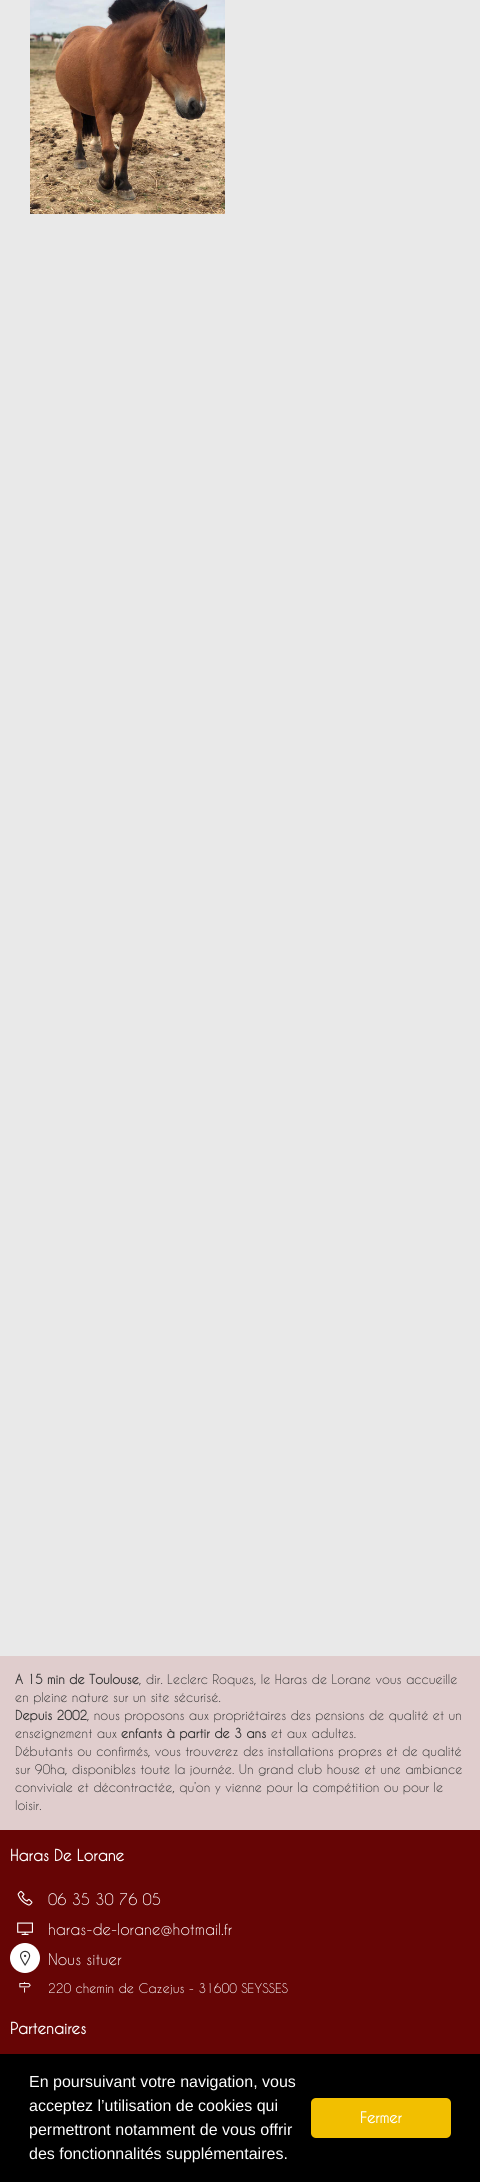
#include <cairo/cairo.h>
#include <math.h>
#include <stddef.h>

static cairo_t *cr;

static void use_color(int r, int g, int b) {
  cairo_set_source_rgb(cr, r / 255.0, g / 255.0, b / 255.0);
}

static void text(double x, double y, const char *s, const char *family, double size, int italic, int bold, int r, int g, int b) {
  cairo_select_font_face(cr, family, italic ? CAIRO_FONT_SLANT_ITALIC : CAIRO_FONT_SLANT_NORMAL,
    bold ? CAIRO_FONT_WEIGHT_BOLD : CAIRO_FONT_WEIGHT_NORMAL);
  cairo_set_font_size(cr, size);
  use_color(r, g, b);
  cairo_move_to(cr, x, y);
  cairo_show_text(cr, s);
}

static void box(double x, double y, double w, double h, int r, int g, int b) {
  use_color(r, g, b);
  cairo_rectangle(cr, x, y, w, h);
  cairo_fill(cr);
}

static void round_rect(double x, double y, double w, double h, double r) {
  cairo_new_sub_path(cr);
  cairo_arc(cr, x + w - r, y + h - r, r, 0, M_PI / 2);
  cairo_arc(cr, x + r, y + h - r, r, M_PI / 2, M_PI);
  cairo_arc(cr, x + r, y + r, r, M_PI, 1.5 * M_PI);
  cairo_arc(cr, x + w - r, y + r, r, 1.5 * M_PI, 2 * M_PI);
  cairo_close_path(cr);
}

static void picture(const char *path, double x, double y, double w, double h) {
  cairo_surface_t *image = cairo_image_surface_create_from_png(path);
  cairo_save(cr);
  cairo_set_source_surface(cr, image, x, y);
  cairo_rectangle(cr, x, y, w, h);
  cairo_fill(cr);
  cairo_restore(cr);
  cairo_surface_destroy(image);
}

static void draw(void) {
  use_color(233, 233, 233);
  cairo_paint(cr);
  picture("img_01.png", 30, 0, 195, 214);
  box(0, 1830, 480, 224, 102, 5, 5);
  box(0, 1656, 480, 174, 224, 205, 205);
  picture("img_02.png", 17, 1890, 16, 16);
  picture("img_03.png", 17, 1922, 16, 13);
  use_color(255, 255, 255);
  cairo_arc(cr, 25, 1958, 15, 0, 2 * M_PI);
  cairo_fill(cr);
  picture("img_04.png", 20, 1950, 11, 16);
  picture("img_05.png", 19, 1982, 12, 11);
  box(0, 2054, 480, 128, 0, 0, 0);
  use_color(242, 191, 0);
  round_rect(311, 2098, 140, 40, 5);
  cairo_fill(cr);
  text(15, 1684, "A 15 min de Toulouse", "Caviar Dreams", 12.6, 0, 1, 50, 50, 50);
  text(139, 1684, ", dir. Leclerc Roques, le Haras de Lorane vous accueille", "Caviar Dreams", 12.6, 0, 0, 50, 50, 50);
  text(15, 1702, "en pleine nature sur un site sécurisé.", "Caviar Dreams", 12.6, 0, 0, 50, 50, 50);
  text(15, 1720, "Depuis 2002", "Caviar Dreams", 12.6, 0, 1, 50, 50, 50);
  text(87, 1720, ", nous proposons aux propriétaires des pensions de qualité et un", "Caviar Dreams", 12.6, 0, 0, 50, 50, 50);
  text(15, 1738, "enseignement aux", "Caviar Dreams", 12.6, 0, 0, 50, 50, 50);
  text(121, 1738, "enfants à partir de 3 ans", "Caviar Dreams", 12.6, 0, 1, 50, 50, 50);
  text(271, 1738, "et aux adultes.", "Caviar Dreams", 12.6, 0, 0, 50, 50, 50);
  text(15, 1756, "Débutants ou confirmés, vous trouverez des installations propres et de qualité", "Caviar Dreams", 12.6, 0, 0, 50, 50, 50);
  text(15, 1774, "sur 90ha, disponibles toute la journée. Un grand club house et une ambiance", "Caviar Dreams", 12.6, 0, 0, 50, 50, 50);
  text(15, 1792, "conviviale et décontractée, qu’on y vienne pour la compétition ou pour le", "Caviar Dreams", 12.6, 0, 0, 50, 50, 50);
  text(15, 1810, "loisir.", "Caviar Dreams", 12.6, 0, 0, 50, 50, 50);
  text(10, 1861, "Haras De Lorane", "Caviar Dreams", 15.1, 0, 1, 255, 255, 255);
  text(48, 1905, "06 35 30 76 05", "Caviar Dreams", 15.1, 0, 0, 255, 255, 255);
  text(48, 1935, "haras-de-lorane@hotmail.fr", "Caviar Dreams", 15.1, 0, 0, 255, 255, 255);
  text(48, 1965, "Nous situer", "Caviar Dreams", 15.1, 0, 0, 255, 255, 255);
  text(48, 1993, "220 chemin de Cazejus - 31600 SEYSSES", "Caviar Dreams", 12.6, 0, 0, 255, 255, 255);
  text(10, 2034, "Partenaires", "Caviar Dreams", 15.1, 0, 1, 255, 255, 255);
  text(29, 2087, "En poursuivant votre navigation, vous", "Liberation Sans", 16, 0, 0, 255, 255, 255);
  text(29, 2111, "acceptez l’utilisation de cookies qui", "Liberation Sans", 16, 0, 0, 255, 255, 255);
  text(29, 2135, "permettront notamment de vous offrir", "Liberation Sans", 16, 0, 0, 255, 255, 255);
  text(29, 2159, "des fonctionnalités supplémentaires.", "Liberation Sans", 16, 0, 0, 255, 255, 255);
  text(360, 2123, "Fermer", "Caviar Dreams", 14.5, 0, 1, 255, 255, 255);
}

int main(void) {
  cairo_surface_t *surface = cairo_image_surface_create(CAIRO_FORMAT_RGB24, 480, 2182);
  cr = cairo_create(surface);
  cairo_font_options_t *options = cairo_font_options_create();
  cairo_font_options_set_hint_metrics(options, CAIRO_HINT_METRICS_OFF);
  cairo_font_options_set_hint_style(options, CAIRO_HINT_STYLE_NONE);
  cairo_set_font_options(cr, options);
  cairo_set_miter_limit(cr, 4);
  draw();
  cairo_surface_write_to_png(surface, "out.png");
  cairo_font_options_destroy(options);
  cairo_destroy(cr);
  cairo_surface_destroy(surface);
  return 0;
}
